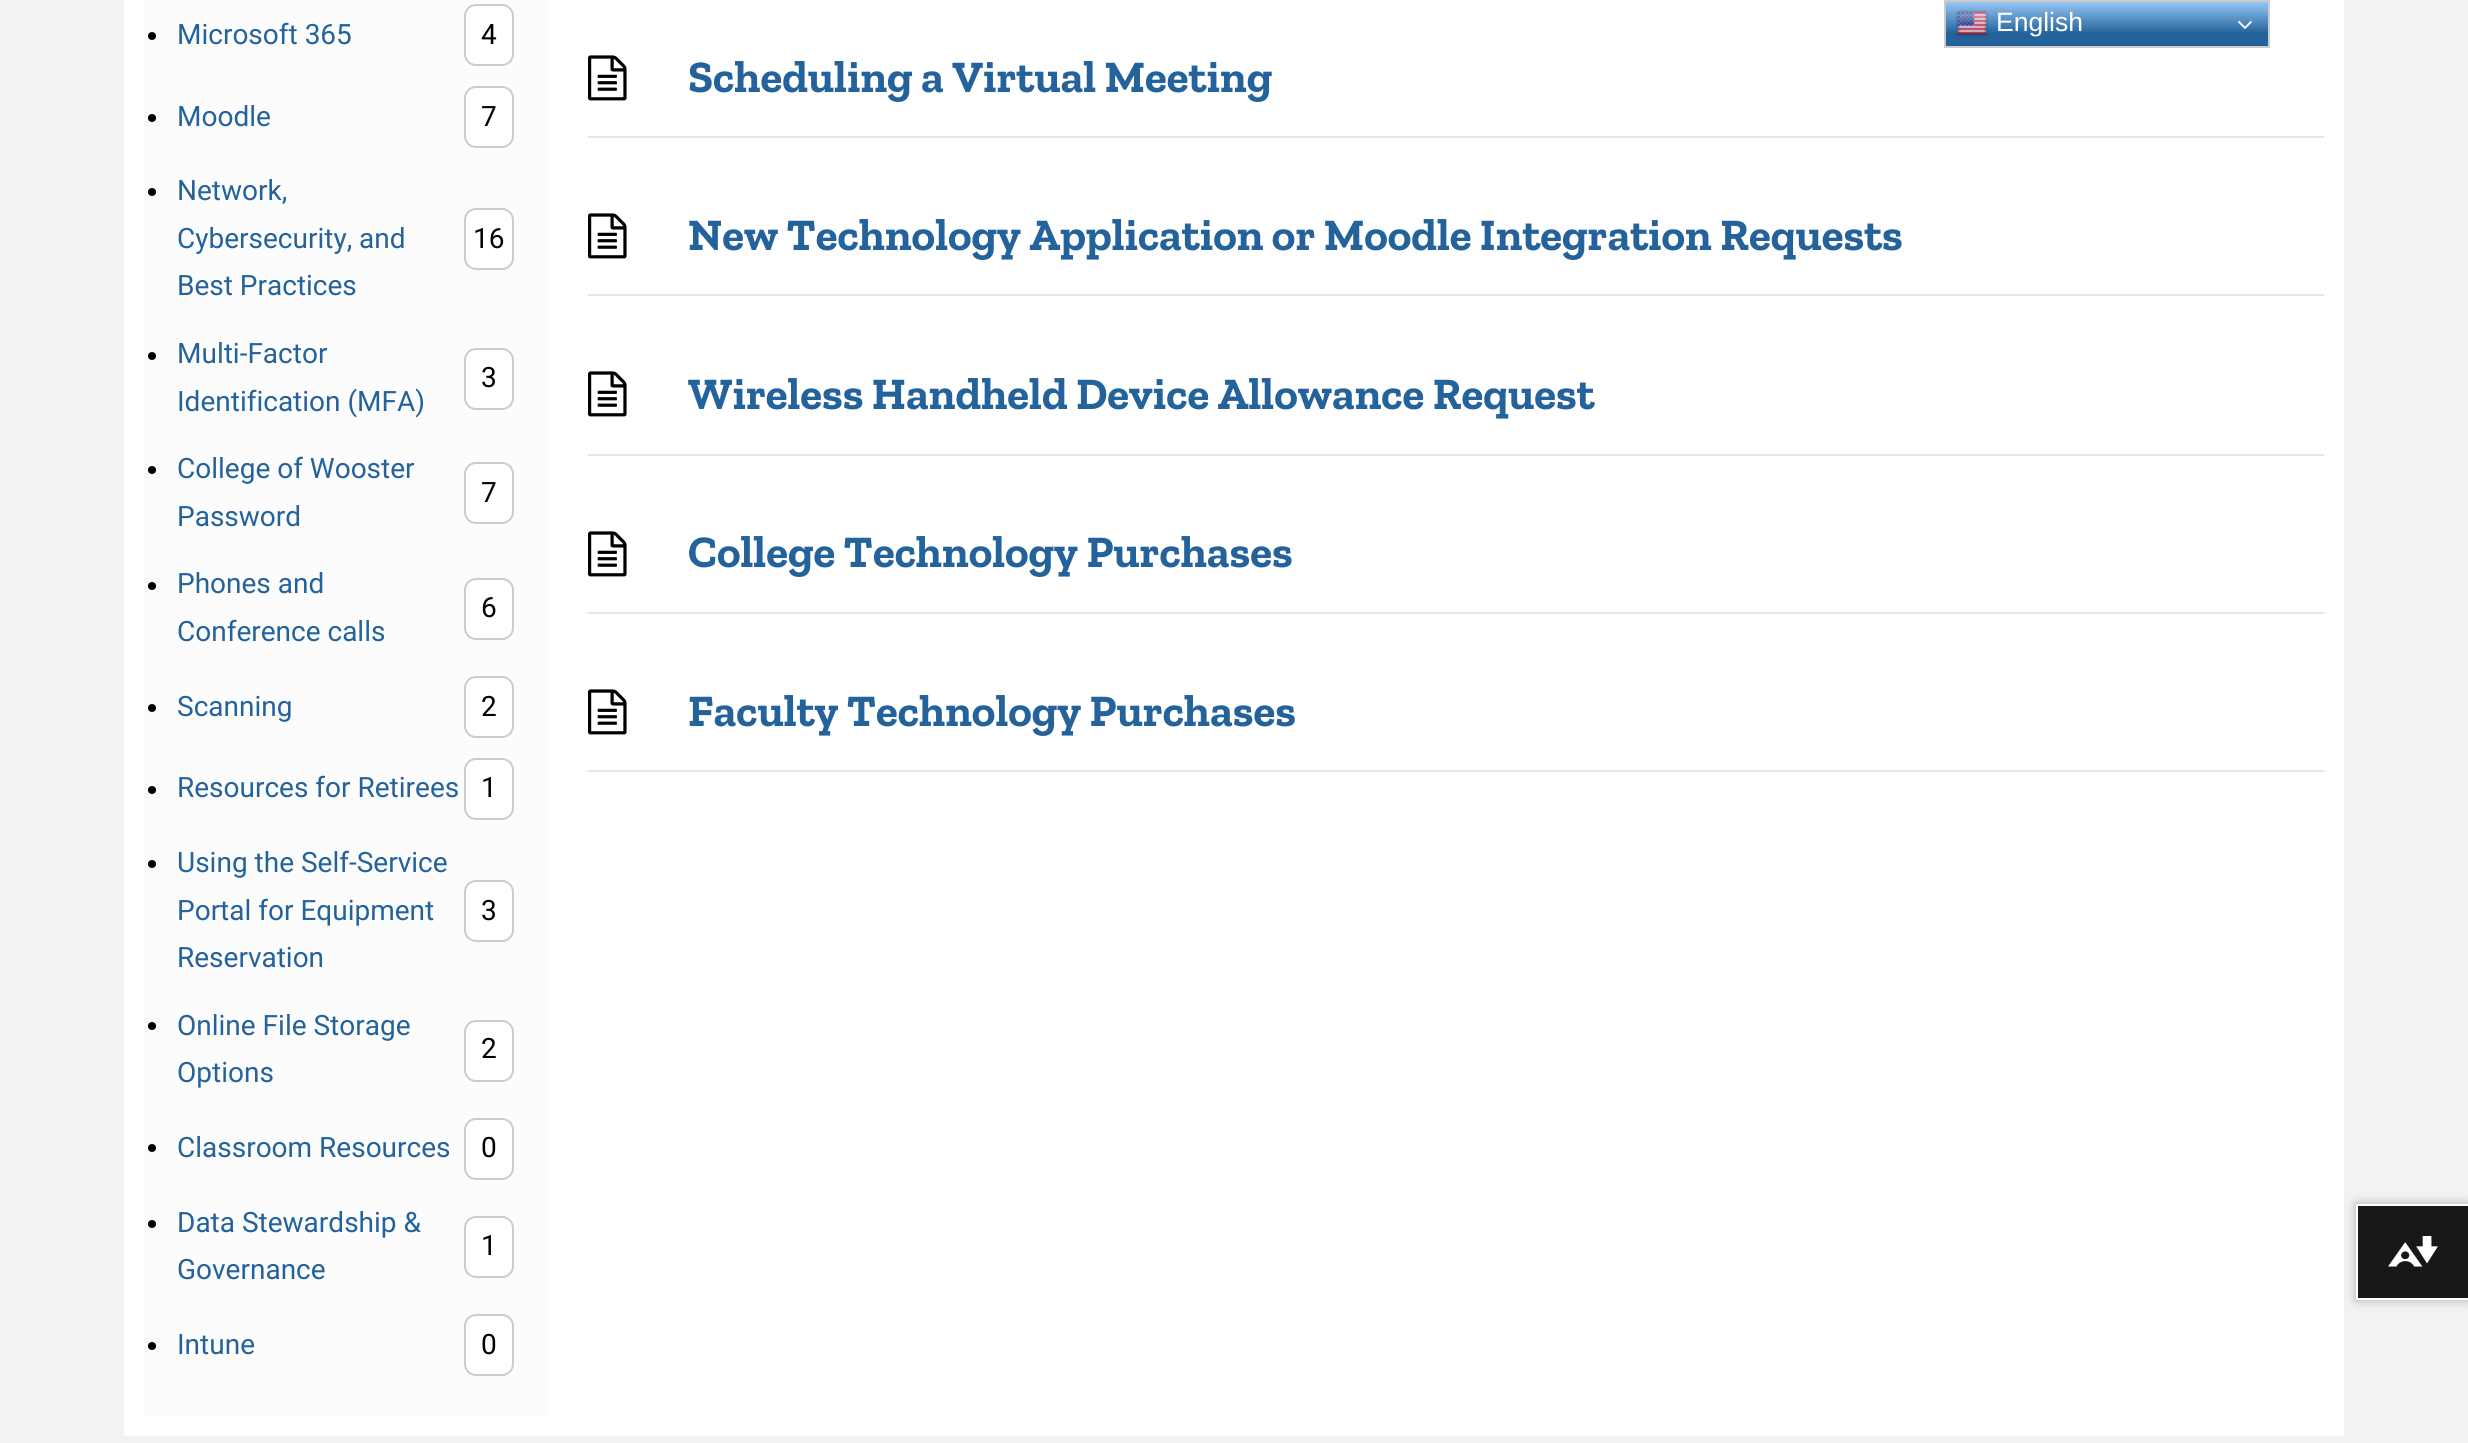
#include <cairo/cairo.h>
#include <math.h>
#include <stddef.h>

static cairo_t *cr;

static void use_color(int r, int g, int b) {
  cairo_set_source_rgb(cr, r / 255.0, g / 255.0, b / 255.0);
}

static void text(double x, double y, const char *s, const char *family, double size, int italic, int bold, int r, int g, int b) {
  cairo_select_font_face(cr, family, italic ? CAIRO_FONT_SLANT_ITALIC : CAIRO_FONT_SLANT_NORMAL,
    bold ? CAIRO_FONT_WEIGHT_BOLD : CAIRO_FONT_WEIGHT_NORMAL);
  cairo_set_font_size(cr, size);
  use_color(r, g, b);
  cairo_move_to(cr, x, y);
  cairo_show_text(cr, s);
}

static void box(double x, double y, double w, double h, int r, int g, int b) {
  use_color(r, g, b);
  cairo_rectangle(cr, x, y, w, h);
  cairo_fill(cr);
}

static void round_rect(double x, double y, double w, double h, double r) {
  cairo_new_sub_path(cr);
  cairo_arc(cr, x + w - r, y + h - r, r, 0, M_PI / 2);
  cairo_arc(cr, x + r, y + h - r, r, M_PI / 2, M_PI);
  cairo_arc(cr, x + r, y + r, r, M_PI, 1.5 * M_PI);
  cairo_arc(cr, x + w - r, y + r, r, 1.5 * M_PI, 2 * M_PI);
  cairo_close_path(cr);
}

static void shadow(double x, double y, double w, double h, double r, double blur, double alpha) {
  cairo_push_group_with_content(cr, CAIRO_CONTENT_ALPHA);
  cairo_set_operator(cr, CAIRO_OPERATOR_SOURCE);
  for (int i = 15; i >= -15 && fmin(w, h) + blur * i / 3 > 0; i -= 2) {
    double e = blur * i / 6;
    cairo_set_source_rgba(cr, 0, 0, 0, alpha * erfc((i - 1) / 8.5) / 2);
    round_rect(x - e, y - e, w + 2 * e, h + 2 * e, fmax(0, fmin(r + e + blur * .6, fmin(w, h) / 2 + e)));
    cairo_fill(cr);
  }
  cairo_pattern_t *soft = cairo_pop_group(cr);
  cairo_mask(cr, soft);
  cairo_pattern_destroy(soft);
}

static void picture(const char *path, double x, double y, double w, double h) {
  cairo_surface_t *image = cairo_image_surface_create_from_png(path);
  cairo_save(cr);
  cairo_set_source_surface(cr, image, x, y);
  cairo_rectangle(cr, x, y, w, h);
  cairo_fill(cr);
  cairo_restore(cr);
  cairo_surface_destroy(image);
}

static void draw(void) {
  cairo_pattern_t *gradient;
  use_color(242, 242, 242);
  cairo_paint(cr);
  box(124, 0, 2220, 1436, 255, 255, 255);
  box(144, 0, 404, 1416, 252, 252, 252);
  use_color(0, 0, 0);
  cairo_arc(cr, 152, 36, 4, 0, 2 * M_PI);
  cairo_fill(cr);
  use_color(255, 255, 255);
  round_rect(465, 5, 48, 60, 11);
  cairo_fill_preserve(cr);
  use_color(204, 204, 204);
  cairo_stroke(cr);
  use_color(0, 0, 0);
  cairo_arc(cr, 152, 118, 4, 0, 2 * M_PI);
  cairo_fill(cr);
  use_color(255, 255, 255);
  round_rect(465, 87, 48, 60, 11);
  cairo_fill_preserve(cr);
  use_color(204, 204, 204);
  cairo_stroke(cr);
  use_color(0, 0, 0);
  cairo_arc(cr, 152, 192, 4, 0, 2 * M_PI);
  cairo_fill(cr);
  use_color(255, 255, 255);
  round_rect(465, 209, 48, 60, 11);
  cairo_fill_preserve(cr);
  use_color(204, 204, 204);
  cairo_stroke(cr);
  use_color(0, 0, 0);
  cairo_arc(cr, 152, 356, 4, 0, 2 * M_PI);
  cairo_fill(cr);
  use_color(255, 255, 255);
  round_rect(465, 349, 48, 60, 11);
  cairo_fill_preserve(cr);
  use_color(204, 204, 204);
  cairo_stroke(cr);
  use_color(0, 0, 0);
  cairo_arc(cr, 152, 470, 4, 0, 2 * M_PI);
  cairo_fill(cr);
  use_color(255, 255, 255);
  round_rect(465, 463, 48, 60, 11);
  cairo_fill_preserve(cr);
  use_color(204, 204, 204);
  cairo_stroke(cr);
  use_color(0, 0, 0);
  cairo_arc(cr, 152, 586, 4, 0, 2 * M_PI);
  cairo_fill(cr);
  use_color(255, 255, 255);
  round_rect(465, 579, 48, 60, 11);
  cairo_fill_preserve(cr);
  use_color(204, 204, 204);
  cairo_stroke(cr);
  use_color(0, 0, 0);
  cairo_arc(cr, 152, 708, 4, 0, 2 * M_PI);
  cairo_fill(cr);
  use_color(255, 255, 255);
  round_rect(465, 677, 48, 60, 11);
  cairo_fill_preserve(cr);
  use_color(204, 204, 204);
  cairo_stroke(cr);
  use_color(0, 0, 0);
  cairo_arc(cr, 152, 790, 4, 0, 2 * M_PI);
  cairo_fill(cr);
  use_color(255, 255, 255);
  round_rect(465, 759, 48, 60, 11);
  cairo_fill_preserve(cr);
  use_color(204, 204, 204);
  cairo_stroke(cr);
  use_color(0, 0, 0);
  cairo_arc(cr, 152, 864, 4, 0, 2 * M_PI);
  cairo_fill(cr);
  use_color(255, 255, 255);
  round_rect(465, 881, 48, 60, 11);
  cairo_fill_preserve(cr);
  use_color(204, 204, 204);
  cairo_stroke(cr);
  use_color(0, 0, 0);
  cairo_arc(cr, 152, 1026, 4, 0, 2 * M_PI);
  cairo_fill(cr);
  use_color(255, 255, 255);
  round_rect(465, 1021, 48, 60, 11);
  cairo_fill_preserve(cr);
  use_color(204, 204, 204);
  cairo_stroke(cr);
  use_color(0, 0, 0);
  cairo_arc(cr, 152, 1148, 4, 0, 2 * M_PI);
  cairo_fill(cr);
  use_color(255, 255, 255);
  round_rect(465, 1119, 48, 60, 11);
  cairo_fill_preserve(cr);
  use_color(204, 204, 204);
  cairo_stroke(cr);
  use_color(0, 0, 0);
  cairo_arc(cr, 152, 1224, 4, 0, 2 * M_PI);
  cairo_fill(cr);
  use_color(255, 255, 255);
  round_rect(465, 1217, 48, 60, 11);
  cairo_fill_preserve(cr);
  use_color(204, 204, 204);
  cairo_stroke(cr);
  use_color(0, 0, 0);
  cairo_arc(cr, 152, 1346, 4, 0, 2 * M_PI);
  cairo_fill(cr);
  use_color(255, 255, 255);
  round_rect(465, 1315, 48, 60, 11);
  cairo_fill_preserve(cr);
  use_color(204, 204, 204);
  cairo_stroke(cr);
  box(588, 136, 1736, 2, 230, 230, 230);
  picture("img_01.png", 588, 55, 39, 46);
  box(588, 294, 1736, 2, 230, 230, 230);
  picture("img_01.png", 588, 213, 39, 46);
  box(588, 454, 1736, 2, 230, 230, 230);
  picture("img_01.png", 588, 371, 39, 46);
  box(588, 612, 1736, 2, 230, 230, 230);
  picture("img_01.png", 588, 531, 39, 46);
  box(588, 770, 1736, 2, 230, 230, 230);
  picture("img_01.png", 588, 689, 39, 46);
  gradient = cairo_pattern_create_linear(2107, 0, 2107, 48);
  cairo_pattern_add_color_stop_rgba(gradient, 0, 0.612, 0.804, 0.984, 1);
  cairo_pattern_add_color_stop_rgba(gradient, 0.7, 0.141, 0.384, 0.608, 1);
  cairo_set_source(cr, gradient);
  cairo_pattern_destroy(gradient);
  cairo_rectangle(cr, 1946, 2, 322, 44);
  cairo_fill(cr);
  cairo_rectangle(cr, 1945, 1, 324, 46);
  use_color(204, 204, 204);
  cairo_stroke(cr);
  picture("img_02.png", 1956, 10, 32, 28);
  picture("img_03.png", 2238, 21, 14, 8);
  use_color(0, 0, 0);
  shadow(2356, 1204, 112, 96, 0, 5, 0.3);
  box(2358, 1206, 110, 92, 24, 24, 24);
  box(2356, 1204, 112, 2, 255, 255, 255);
  box(2356, 1298, 112, 2, 255, 255, 255);
  box(2356, 1204, 2, 96, 255, 255, 255);
  picture("img_04.png", 2388, 1236, 50, 31);
  text(177, 44, "Microsoft 365", "Roboto", 28, 0, 0, 36, 98, 155);
  text(481, 44, "4", "Roboto", 28, 0, 0, 0, 0, 0);
  text(177, 126, "Moodle", "Roboto", 28, 0, 0, 36, 98, 155);
  text(481, 126, "7", "Roboto", 28, 0, 0, 0, 0, 0);
  text(177, 200, "Network,", "Roboto", 28, 0, 0, 36, 98, 155);
  text(177, 248, "Cybersecurity, and", "Roboto", 28, 0, 0, 36, 98, 155);
  text(177, 295, "Best Practices", "Roboto", 28, 0, 0, 36, 98, 155);
  text(473, 248, "16", "Roboto", 28, 0, 0, 0, 0, 0);
  text(177, 363, "Multi-Factor", "Roboto", 28, 0, 0, 36, 98, 155);
  text(177, 411, "Identification (MFA)", "Roboto", 28, 0, 0, 36, 98, 155);
  text(481, 387, "3", "Roboto", 28, 0, 0, 0, 0, 0);
  text(177, 478, "College of Wooster", "Roboto", 28, 0, 0, 36, 98, 155);
  text(177, 526, "Password", "Roboto", 28, 0, 0, 36, 98, 155);
  text(481, 502, "7", "Roboto", 28, 0, 0, 0, 0, 0);
  text(177, 593, "Phones and", "Roboto", 28, 0, 0, 36, 98, 155);
  text(177, 641, "Conference calls", "Roboto", 28, 0, 0, 36, 98, 155);
  text(481, 617, "6", "Roboto", 28, 0, 0, 0, 0, 0);
  text(177, 716, "Scanning", "Roboto", 28, 0, 0, 36, 98, 155);
  text(481, 716, "2", "Roboto", 28, 0, 0, 0, 0, 0);
  text(177, 797, "Resources for Retirees", "Roboto", 28, 0, 0, 36, 98, 155);
  text(481, 797, "1", "Roboto", 28, 0, 0, 0, 0, 0);
  text(177, 872, "Using the Self-Service", "Roboto", 28, 0, 0, 36, 98, 155);
  text(177, 920, "Portal for Equipment", "Roboto", 28, 0, 0, 36, 98, 155);
  text(177, 967, "Reservation", "Roboto", 28, 0, 0, 36, 98, 155);
  text(481, 920, "3", "Roboto", 28, 0, 0, 0, 0, 0);
  text(177, 1035, "Online File Storage", "Roboto", 28, 0, 0, 36, 98, 155);
  text(177, 1082, "Options", "Roboto", 28, 0, 0, 36, 98, 155);
  text(481, 1058, "2", "Roboto", 28, 0, 0, 0, 0, 0);
  text(177, 1157, "Classroom Resources", "Roboto", 28, 0, 0, 36, 98, 155);
  text(481, 1157, "0", "Roboto", 28, 0, 0, 0, 0, 0);
  text(177, 1232, "Data Stewardship &", "Roboto", 28, 0, 0, 36, 98, 155);
  text(177, 1279, "Governance", "Roboto", 28, 0, 0, 36, 98, 155);
  text(481, 1255, "1", "Roboto", 28, 0, 0, 0, 0, 0);
  text(177, 1354, "Intune", "Roboto", 28, 0, 0, 36, 98, 155);
  text(481, 1354, "0", "Roboto", 28, 0, 0, 0, 0, 0);
  text(688, 92, "Scheduling a Virtual Meeting", "Zilla Slab", 45, 0, 1, 36, 98, 155);
  text(688, 250, "New Technology Application or Moodle Integration Requests", "Zilla Slab", 45, 0, 1, 36, 98, 155);
  text(688, 409, "Wireless Handheld Device Allowance Request", "Zilla Slab", 45, 0, 1, 36, 98, 155);
  text(688, 567, "College Technology Purchases", "Zilla Slab", 45, 0, 1, 36, 98, 155);
  text(688, 726, "Faculty Technology Purchases", "Zilla Slab", 45, 0, 1, 36, 98, 155);
  text(1996, 31, "English", "Liberation Sans", 26.5, 0, 0, 255, 255, 255);
}

int main(void) {
  cairo_surface_t *surface = cairo_image_surface_create(CAIRO_FORMAT_RGB24, 2468, 1443);
  cr = cairo_create(surface);
  cairo_font_options_t *options = cairo_font_options_create();
  cairo_font_options_set_hint_metrics(options, CAIRO_HINT_METRICS_OFF);
  cairo_font_options_set_hint_style(options, CAIRO_HINT_STYLE_NONE);
  cairo_set_font_options(cr, options);
  cairo_set_miter_limit(cr, 4);
  draw();
  cairo_surface_write_to_png(surface, "out.png");
  cairo_font_options_destroy(options);
  cairo_destroy(cr);
  cairo_surface_destroy(surface);
  return 0;
}
